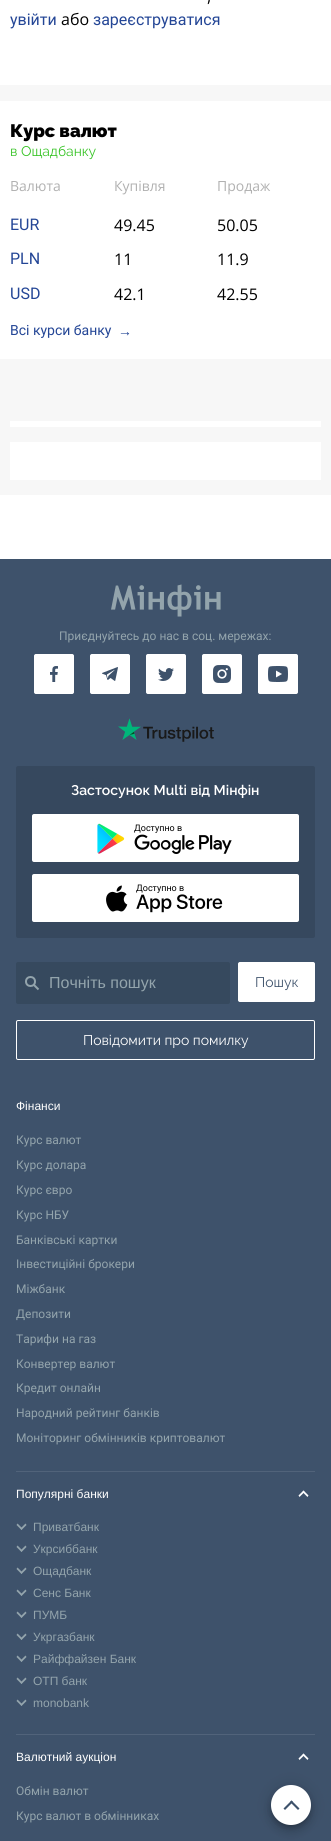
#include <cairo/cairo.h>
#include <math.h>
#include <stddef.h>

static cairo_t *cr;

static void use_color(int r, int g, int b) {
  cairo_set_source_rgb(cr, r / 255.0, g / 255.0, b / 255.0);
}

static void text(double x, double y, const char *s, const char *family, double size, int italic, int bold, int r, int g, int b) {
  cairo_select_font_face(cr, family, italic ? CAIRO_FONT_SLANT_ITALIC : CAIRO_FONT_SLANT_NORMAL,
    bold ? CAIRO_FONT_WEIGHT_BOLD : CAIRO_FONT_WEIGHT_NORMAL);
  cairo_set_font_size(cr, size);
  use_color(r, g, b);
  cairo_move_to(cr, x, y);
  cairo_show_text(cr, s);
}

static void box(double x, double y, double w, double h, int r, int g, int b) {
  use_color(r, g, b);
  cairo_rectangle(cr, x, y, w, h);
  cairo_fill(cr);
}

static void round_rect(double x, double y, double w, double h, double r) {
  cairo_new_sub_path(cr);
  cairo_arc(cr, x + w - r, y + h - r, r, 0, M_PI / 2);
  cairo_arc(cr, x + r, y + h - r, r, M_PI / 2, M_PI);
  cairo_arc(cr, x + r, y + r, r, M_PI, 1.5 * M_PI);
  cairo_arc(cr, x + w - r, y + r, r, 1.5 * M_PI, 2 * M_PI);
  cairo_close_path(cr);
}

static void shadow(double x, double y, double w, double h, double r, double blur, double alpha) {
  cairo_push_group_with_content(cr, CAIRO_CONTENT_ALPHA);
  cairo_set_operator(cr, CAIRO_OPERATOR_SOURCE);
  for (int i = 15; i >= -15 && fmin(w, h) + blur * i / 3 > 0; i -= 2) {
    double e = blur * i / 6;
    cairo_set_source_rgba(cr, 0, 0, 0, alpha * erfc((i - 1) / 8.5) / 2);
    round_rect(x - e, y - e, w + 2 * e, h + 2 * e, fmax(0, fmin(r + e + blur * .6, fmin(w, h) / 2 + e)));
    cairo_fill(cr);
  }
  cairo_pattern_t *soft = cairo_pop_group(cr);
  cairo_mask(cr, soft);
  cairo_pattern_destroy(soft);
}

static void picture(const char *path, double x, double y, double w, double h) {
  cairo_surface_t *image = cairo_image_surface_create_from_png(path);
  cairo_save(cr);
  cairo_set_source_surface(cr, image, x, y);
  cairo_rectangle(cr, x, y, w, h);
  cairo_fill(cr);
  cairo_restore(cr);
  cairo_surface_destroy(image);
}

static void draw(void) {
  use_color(247, 247, 247);
  cairo_paint(cr);
  box(0, 0, 331, 85, 255, 255, 255);
  box(0, 101, 331, 258, 255, 255, 255);
  box(10, 421, 311, 6, 255, 255, 255);
  box(10, 442, 311, 38, 255, 255, 255);
  box(0, 495, 331, 64, 255, 255, 255);
  box(0, 559, 331, 1282, 62, 82, 107);
  picture("img_01.png", 111, 584, 110, 33);
  use_color(255, 255, 255);
  round_rect(34.5, 654.5, 39, 39, 1.5);
  cairo_fill_preserve(cr);
  cairo_set_line_width(cr, 1);
  cairo_stroke(cr);
  picture("img_02.png", 50, 666, 8, 16);
  round_rect(90.5, 654.5, 39, 39, 1.5);
  cairo_fill_preserve(cr);
  cairo_stroke(cr);
  picture("img_03.png", 102, 667, 16, 14);
  round_rect(146.5, 654.5, 39, 39, 1.5);
  cairo_fill_preserve(cr);
  cairo_stroke(cr);
  picture("img_04.png", 158, 668, 16, 13);
  round_rect(202.5, 654.5, 39, 39, 1.5);
  cairo_fill_preserve(cr);
  cairo_stroke(cr);
  picture("img_05.png", 213, 665, 18, 18);
  round_rect(258.5, 654.5, 39, 39, 1.5);
  cairo_fill_preserve(cr);
  cairo_stroke(cr);
  picture("img_06.png", 268, 666, 20, 16);
  picture("img_07.png", 118, 718, 96, 24);
  use_color(54, 72, 94);
  round_rect(16, 766, 299, 172, 2);
  cairo_fill(cr);
  use_color(255, 255, 255);
  round_rect(32, 814, 267, 48, 2);
  cairo_fill(cr);
  picture("img_08.png", 97, 823, 28, 31);
  picture("img_09.png", 134, 834, 98, 20);
  round_rect(32, 874, 267, 48, 2);
  cairo_fill(cr);
  picture("img_10.png", 106, 885, 22, 27);
  picture("img_11.png", 136, 894, 87, 19);
  use_color(54, 73, 94);
  round_rect(16.5, 962.5, 213, 41, 1.5);
  cairo_fill_preserve(cr);
  cairo_stroke(cr);
  cairo_arc(cr, 30.5, 981.5, 4.5, 0, 2 * M_PI);
  use_color(147, 164, 172);
  cairo_set_line_width(cr, 2);
  cairo_stroke(cr);
  cairo_new_path(cr);
  cairo_move_to(cr, 34, 985);
  cairo_line_to(cr, 38.5, 989.5);
  cairo_stroke(cr);
  use_color(255, 255, 255);
  round_rect(238.5, 962.5, 76, 39, 1.5);
  cairo_fill_preserve(cr);
  cairo_set_line_width(cr, 1);
  cairo_stroke(cr);
  round_rect(16.5, 1020.5, 298, 39, 1.5);
  cairo_stroke(cr);
  box(16, 1471, 299, 1, 81, 99, 122);
  use_color(255, 255, 255);
  cairo_new_path(cr);
  cairo_move_to(cr, 303.5, 1490.5);
  cairo_line_to(cr, 308.5, 1495.5);
  cairo_line_to(cr, 307.5, 1497);
  cairo_line_to(cr, 302.5, 1492);
  cairo_close_path(cr);
  cairo_fill(cr);
  cairo_new_path(cr);
  cairo_move_to(cr, 298.5, 1495.5);
  cairo_line_to(cr, 303.5, 1490.5);
  cairo_line_to(cr, 304.5, 1492);
  cairo_line_to(cr, 299.5, 1497);
  cairo_close_path(cr);
  cairo_fill(cr);
  use_color(147, 164, 172);
  cairo_new_path(cr);
  cairo_move_to(cr, 20.5, 1528.5);
  cairo_line_to(cr, 25.5, 1523.5);
  cairo_line_to(cr, 26.5, 1525);
  cairo_line_to(cr, 21.5, 1530);
  cairo_close_path(cr);
  cairo_fill(cr);
  cairo_new_path(cr);
  cairo_move_to(cr, 17.5, 1523.5);
  cairo_line_to(cr, 22.5, 1528.5);
  cairo_line_to(cr, 21.5, 1530);
  cairo_line_to(cr, 16.5, 1525);
  cairo_close_path(cr);
  cairo_fill(cr);
  cairo_new_path(cr);
  cairo_move_to(cr, 20.5, 1550.5);
  cairo_line_to(cr, 25.5, 1545.5);
  cairo_line_to(cr, 26.5, 1547);
  cairo_line_to(cr, 21.5, 1552);
  cairo_close_path(cr);
  cairo_fill(cr);
  cairo_new_path(cr);
  cairo_move_to(cr, 17.5, 1545.5);
  cairo_line_to(cr, 22.5, 1550.5);
  cairo_line_to(cr, 21.5, 1552);
  cairo_line_to(cr, 16.5, 1547);
  cairo_close_path(cr);
  cairo_fill(cr);
  cairo_new_path(cr);
  cairo_move_to(cr, 20.5, 1572.5);
  cairo_line_to(cr, 25.5, 1567.5);
  cairo_line_to(cr, 26.5, 1569);
  cairo_line_to(cr, 21.5, 1574);
  cairo_close_path(cr);
  cairo_fill(cr);
  cairo_new_path(cr);
  cairo_move_to(cr, 17.5, 1567.5);
  cairo_line_to(cr, 22.5, 1572.5);
  cairo_line_to(cr, 21.5, 1574);
  cairo_line_to(cr, 16.5, 1569);
  cairo_close_path(cr);
  cairo_fill(cr);
  cairo_new_path(cr);
  cairo_move_to(cr, 20.5, 1594.5);
  cairo_line_to(cr, 25.5, 1589.5);
  cairo_line_to(cr, 26.5, 1591);
  cairo_line_to(cr, 21.5, 1596);
  cairo_close_path(cr);
  cairo_fill(cr);
  cairo_new_path(cr);
  cairo_move_to(cr, 17.5, 1589.5);
  cairo_line_to(cr, 22.5, 1594.5);
  cairo_line_to(cr, 21.5, 1596);
  cairo_line_to(cr, 16.5, 1591);
  cairo_close_path(cr);
  cairo_fill(cr);
  cairo_new_path(cr);
  cairo_move_to(cr, 20.5, 1616.5);
  cairo_line_to(cr, 25.5, 1611.5);
  cairo_line_to(cr, 26.5, 1613);
  cairo_line_to(cr, 21.5, 1618);
  cairo_close_path(cr);
  cairo_fill(cr);
  cairo_new_path(cr);
  cairo_move_to(cr, 17.5, 1611.5);
  cairo_line_to(cr, 22.5, 1616.5);
  cairo_line_to(cr, 21.5, 1618);
  cairo_line_to(cr, 16.5, 1613);
  cairo_close_path(cr);
  cairo_fill(cr);
  cairo_new_path(cr);
  cairo_move_to(cr, 20.5, 1638.5);
  cairo_line_to(cr, 25.5, 1633.5);
  cairo_line_to(cr, 26.5, 1635);
  cairo_line_to(cr, 21.5, 1640);
  cairo_close_path(cr);
  cairo_fill(cr);
  cairo_new_path(cr);
  cairo_move_to(cr, 17.5, 1633.5);
  cairo_line_to(cr, 22.5, 1638.5);
  cairo_line_to(cr, 21.5, 1640);
  cairo_line_to(cr, 16.5, 1635);
  cairo_close_path(cr);
  cairo_fill(cr);
  cairo_new_path(cr);
  cairo_move_to(cr, 20.5, 1660.5);
  cairo_line_to(cr, 25.5, 1655.5);
  cairo_line_to(cr, 26.5, 1657);
  cairo_line_to(cr, 21.5, 1662);
  cairo_close_path(cr);
  cairo_fill(cr);
  cairo_new_path(cr);
  cairo_move_to(cr, 17.5, 1655.5);
  cairo_line_to(cr, 22.5, 1660.5);
  cairo_line_to(cr, 21.5, 1662);
  cairo_line_to(cr, 16.5, 1657);
  cairo_close_path(cr);
  cairo_fill(cr);
  cairo_new_path(cr);
  cairo_move_to(cr, 20.5, 1682.5);
  cairo_line_to(cr, 25.5, 1677.5);
  cairo_line_to(cr, 26.5, 1679);
  cairo_line_to(cr, 21.5, 1684);
  cairo_close_path(cr);
  cairo_fill(cr);
  cairo_new_path(cr);
  cairo_move_to(cr, 17.5, 1677.5);
  cairo_line_to(cr, 22.5, 1682.5);
  cairo_line_to(cr, 21.5, 1684);
  cairo_line_to(cr, 16.5, 1679);
  cairo_close_path(cr);
  cairo_fill(cr);
  cairo_new_path(cr);
  cairo_move_to(cr, 20.5, 1704.5);
  cairo_line_to(cr, 25.5, 1699.5);
  cairo_line_to(cr, 26.5, 1701);
  cairo_line_to(cr, 21.5, 1706);
  cairo_close_path(cr);
  cairo_fill(cr);
  cairo_new_path(cr);
  cairo_move_to(cr, 17.5, 1699.5);
  cairo_line_to(cr, 22.5, 1704.5);
  cairo_line_to(cr, 21.5, 1706);
  cairo_line_to(cr, 16.5, 1701);
  cairo_close_path(cr);
  cairo_fill(cr);
  box(16, 1734, 299, 1, 81, 99, 122);
  use_color(255, 255, 255);
  cairo_new_path(cr);
  cairo_move_to(cr, 303.5, 1753.5);
  cairo_line_to(cr, 308.5, 1758.5);
  cairo_line_to(cr, 307.5, 1760);
  cairo_line_to(cr, 302.5, 1755);
  cairo_close_path(cr);
  cairo_fill(cr);
  cairo_new_path(cr);
  cairo_move_to(cr, 298.5, 1758.5);
  cairo_line_to(cr, 303.5, 1753.5);
  cairo_line_to(cr, 304.5, 1755);
  cairo_line_to(cr, 299.5, 1760);
  cairo_close_path(cr);
  cairo_fill(cr);
  use_color(0, 0, 0);
  shadow(271, 1786, 40, 40, 20, 9, 0.12);
  shadow(271, 1791, 40, 40, 20, 5, 0.14);
  shadow(272, 1789, 38, 38, 19, 2.5, 0.2);
  use_color(255, 255, 255);
  cairo_arc(cr, 291, 1805, 20, 0, 2 * M_PI);
  cairo_fill(cr);
  use_color(62, 82, 107);
  cairo_new_path(cr);
  cairo_move_to(cr, 291.5, 1800.5);
  cairo_line_to(cr, 299.5, 1808.5);
  cairo_line_to(cr, 298, 1810);
  cairo_line_to(cr, 290, 1802);
  cairo_close_path(cr);
  cairo_fill(cr);
  cairo_new_path(cr);
  cairo_move_to(cr, 291.5, 1800.5);
  cairo_line_to(cr, 293, 1802);
  cairo_line_to(cr, 285, 1810);
  cairo_line_to(cr, 283.5, 1808.5);
  cairo_close_path(cr);
  cairo_fill(cr);
  text(207, 2, ",", "Open Sans", 16, 0, 0, 0, 0, 0);
  text(10, 25, "увійти", "Roboto", 16, 0, 0, 36, 70, 150);
  text(61, 25, "або", "Open Sans", 16, 0, 0, 0, 0, 0);
  text(93, 25, "зареєструватися", "Roboto", 16, 0, 0, 36, 70, 150);
  text(10, 137, "Курс валют", "Raleway Black", 18, 0, 0, 0, 0, 0);
  text(10, 156, "в Ощадбанку", "Raleway", 14, 0, 0, 54, 195, 36);
  text(10, 191, "Валюта", "Open Sans", 14, 0, 0, 177, 177, 177);
  text(114, 191, "Купівля", "Open Sans", 14, 0, 0, 177, 177, 177);
  text(217, 191, "Продаж", "Open Sans", 14, 0, 0, 177, 177, 177);
  text(10, 230, "EUR", "Roboto", 16, 0, 0, 36, 70, 150);
  text(114, 231, "49.45", "Open Sans", 16, 0, 0, 0, 0, 0);
  text(217, 231, "50.05", "Open Sans", 16, 0, 0, 0, 0, 0);
  text(10, 264, "PLN", "Roboto", 16, 0, 0, 36, 70, 150);
  text(114, 265, "11", "Open Sans", 16, 0, 0, 0, 0, 0);
  text(217, 265, "11.9", "Open Sans", 16, 0, 0, 0, 0, 0);
  text(10, 299, "USD", "Roboto", 16, 0, 0, 36, 70, 150);
  text(114, 300, "42.1", "Open Sans", 16, 0, 0, 0, 0, 0);
  text(217, 300, "42.55", "Open Sans", 16, 0, 0, 0, 0, 0);
  text(10, 335, "Всі курси банку", "Roboto", 14, 0, 0, 36, 70, 150);
  text(118, 336, "→", "Liberation Sans", 14, 0, 0, 36, 70, 150);
  text(59, 640, "Приєднуйтесь до нас в соц. мережах:", "Roboto", 12, 0, 0, 147, 164, 172);
  text(71, 795, "Застосунок Multi від Мінфін", "Raleway SemiBold", 14, 0, 0, 255, 255, 255);
  text(134, 831, "Доступно в", "Roboto", 9, 0, 0, 0, 0, 0);
  text(136, 891, "Доступно в", "Roboto", 9, 0, 0, 0, 0, 0);
  text(49, 988, "Почніть пошук", "Liberation Sans", 16, 0, 0, 147, 164, 172);
  text(255, 987, "Пошук", "Raleway", 14, 0, 0, 62, 82, 107);
  text(83, 1045, "Повідомити про помилку", "Raleway", 14, 0, 0, 255, 255, 255);
  text(16, 1110, "Фінанси", "Liberation Sans", 12, 0, 0, 255, 255, 255);
  text(16, 1144, "Курс валют", "Roboto", 12, 0, 0, 147, 164, 172);
  text(16, 1169, "Курс долара", "Roboto", 12, 0, 0, 147, 164, 172);
  text(16, 1194, "Курс євро", "Roboto", 12, 0, 0, 147, 164, 172);
  text(16, 1219, "Курс НБУ", "Roboto", 12, 0, 0, 147, 164, 172);
  text(16, 1244, "Банківські картки", "Roboto", 12, 0, 0, 147, 164, 172);
  text(16, 1268, "Інвестиційні брокери", "Roboto", 12, 0, 0, 147, 164, 172);
  text(16, 1293, "Міжбанк", "Roboto", 12, 0, 0, 147, 164, 172);
  text(16, 1318, "Депозити", "Roboto", 12, 0, 0, 147, 164, 172);
  text(16, 1343, "Тарифи на газ", "Roboto", 12, 0, 0, 147, 164, 172);
  text(16, 1368, "Конвертер валют", "Roboto", 12, 0, 0, 147, 164, 172);
  text(16, 1392, "Кредит онлайн", "Roboto", 12, 0, 0, 147, 164, 172);
  text(16, 1417, "Народний рейтинг банків", "Roboto", 12, 0, 0, 147, 164, 172);
  text(16, 1442, "Моніторинг обмінників криптовалют", "Roboto", 12, 0, 0, 147, 164, 172);
  text(16, 1498, "Популярні банки", "Liberation Sans", 12, 0, 0, 255, 255, 255);
  text(33, 1531, "Приватбанк", "Liberation Sans", 12, 0, 0, 147, 164, 172);
  text(33, 1553, "Укрсиббанк", "Liberation Sans", 12, 0, 0, 147, 164, 172);
  text(33, 1575, "Ощадбанк", "Liberation Sans", 12, 0, 0, 147, 164, 172);
  text(33, 1597, "Сенс Банк", "Liberation Sans", 12, 0, 0, 147, 164, 172);
  text(33, 1619, "ПУМБ", "Liberation Sans", 12, 0, 0, 147, 164, 172);
  text(33, 1641, "Укргазбанк", "Liberation Sans", 12, 0, 0, 147, 164, 172);
  text(33, 1663, "Райффайзен Банк", "Liberation Sans", 12, 0, 0, 147, 164, 172);
  text(33, 1685, "ОТП банк", "Liberation Sans", 12, 0, 0, 147, 164, 172);
  text(33, 1707, "monobank", "Liberation Sans", 12, 0, 0, 147, 164, 172);
  text(16, 1761, "Валютний аукціон", "Liberation Sans", 12, 0, 0, 255, 255, 255);
  text(16, 1795, "Обмін валют", "Roboto", 12, 0, 0, 147, 164, 172);
  text(16, 1820, "Курс валют в обмінниках", "Roboto", 12, 0, 0, 147, 164, 172);
}

int main(void) {
  cairo_surface_t *surface = cairo_image_surface_create(CAIRO_FORMAT_RGB24, 331, 1841);
  cr = cairo_create(surface);
  cairo_font_options_t *options = cairo_font_options_create();
  cairo_font_options_set_hint_metrics(options, CAIRO_HINT_METRICS_OFF);
  cairo_font_options_set_hint_style(options, CAIRO_HINT_STYLE_NONE);
  cairo_set_font_options(cr, options);
  cairo_set_miter_limit(cr, 4);
  draw();
  cairo_surface_write_to_png(surface, "out.png");
  cairo_font_options_destroy(options);
  cairo_destroy(cr);
  cairo_surface_destroy(surface);
  return 0;
}
